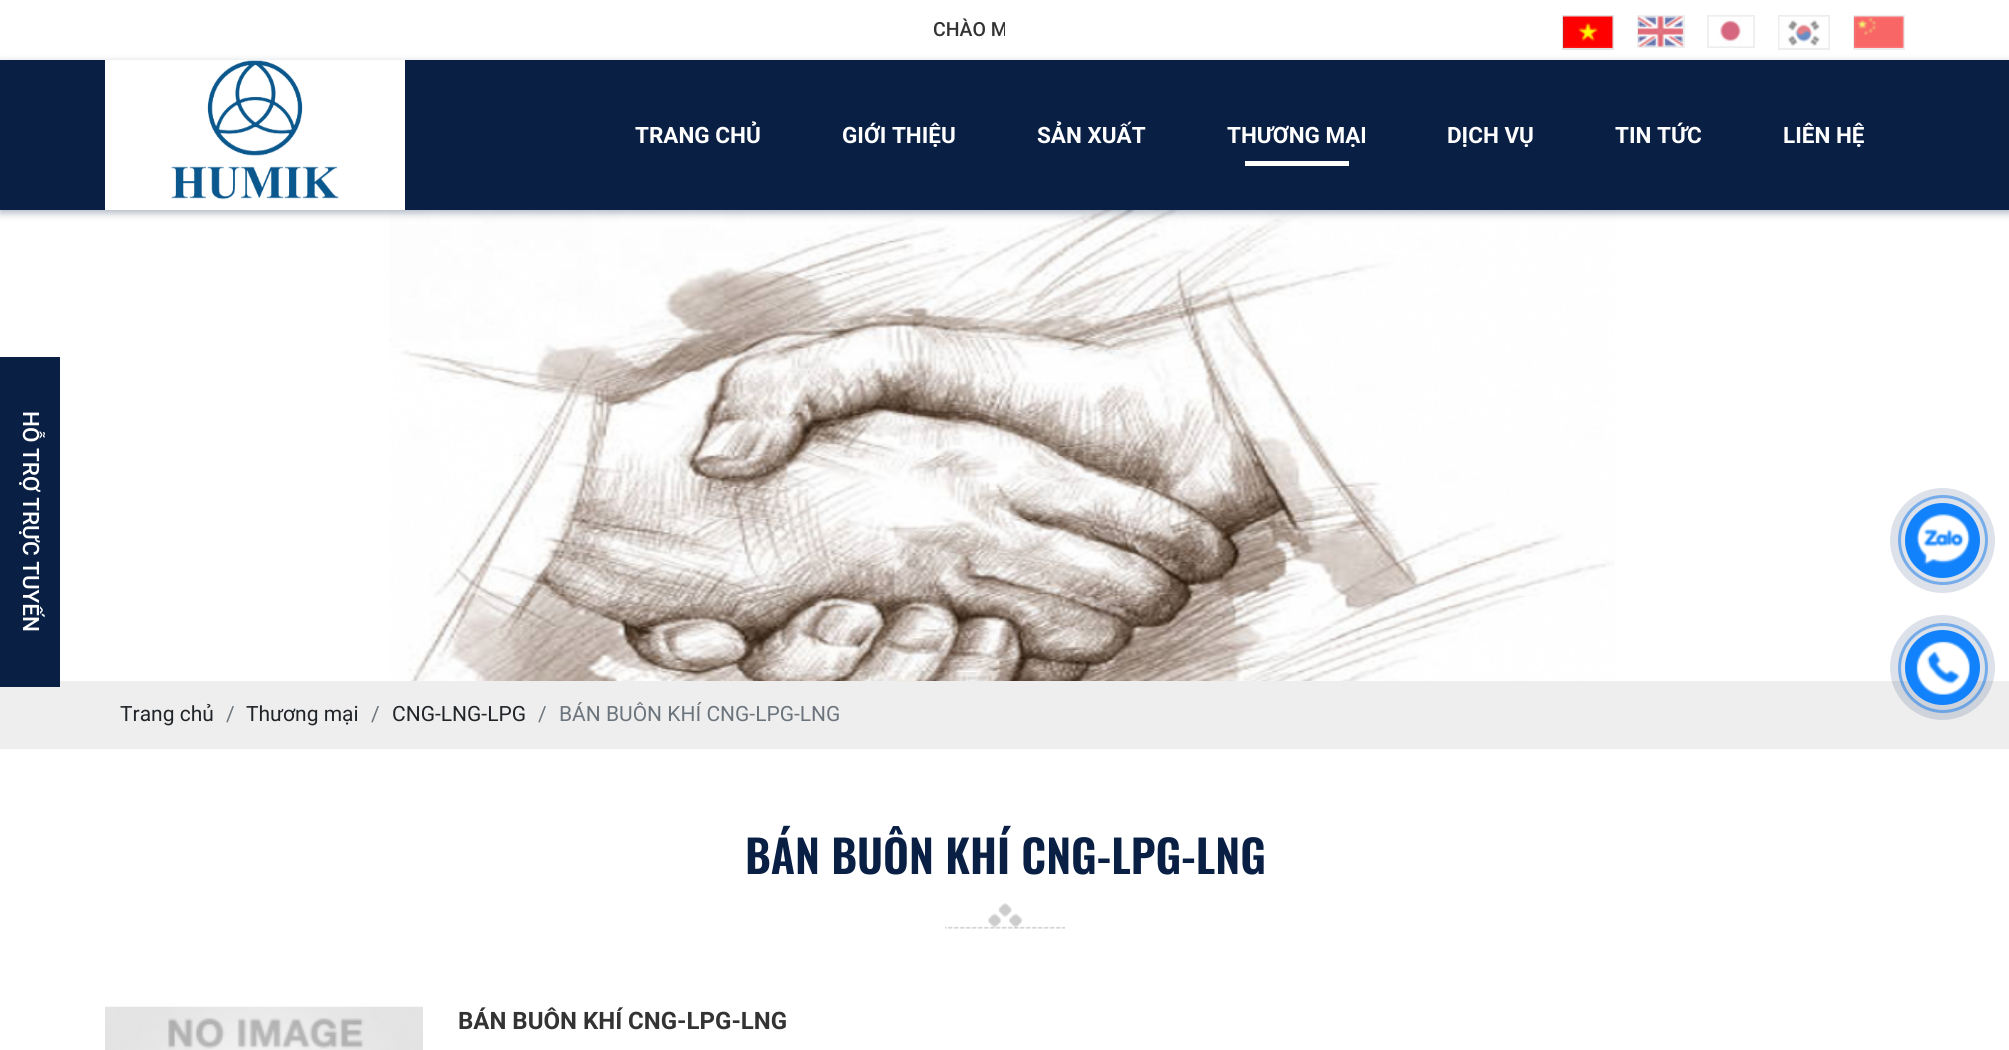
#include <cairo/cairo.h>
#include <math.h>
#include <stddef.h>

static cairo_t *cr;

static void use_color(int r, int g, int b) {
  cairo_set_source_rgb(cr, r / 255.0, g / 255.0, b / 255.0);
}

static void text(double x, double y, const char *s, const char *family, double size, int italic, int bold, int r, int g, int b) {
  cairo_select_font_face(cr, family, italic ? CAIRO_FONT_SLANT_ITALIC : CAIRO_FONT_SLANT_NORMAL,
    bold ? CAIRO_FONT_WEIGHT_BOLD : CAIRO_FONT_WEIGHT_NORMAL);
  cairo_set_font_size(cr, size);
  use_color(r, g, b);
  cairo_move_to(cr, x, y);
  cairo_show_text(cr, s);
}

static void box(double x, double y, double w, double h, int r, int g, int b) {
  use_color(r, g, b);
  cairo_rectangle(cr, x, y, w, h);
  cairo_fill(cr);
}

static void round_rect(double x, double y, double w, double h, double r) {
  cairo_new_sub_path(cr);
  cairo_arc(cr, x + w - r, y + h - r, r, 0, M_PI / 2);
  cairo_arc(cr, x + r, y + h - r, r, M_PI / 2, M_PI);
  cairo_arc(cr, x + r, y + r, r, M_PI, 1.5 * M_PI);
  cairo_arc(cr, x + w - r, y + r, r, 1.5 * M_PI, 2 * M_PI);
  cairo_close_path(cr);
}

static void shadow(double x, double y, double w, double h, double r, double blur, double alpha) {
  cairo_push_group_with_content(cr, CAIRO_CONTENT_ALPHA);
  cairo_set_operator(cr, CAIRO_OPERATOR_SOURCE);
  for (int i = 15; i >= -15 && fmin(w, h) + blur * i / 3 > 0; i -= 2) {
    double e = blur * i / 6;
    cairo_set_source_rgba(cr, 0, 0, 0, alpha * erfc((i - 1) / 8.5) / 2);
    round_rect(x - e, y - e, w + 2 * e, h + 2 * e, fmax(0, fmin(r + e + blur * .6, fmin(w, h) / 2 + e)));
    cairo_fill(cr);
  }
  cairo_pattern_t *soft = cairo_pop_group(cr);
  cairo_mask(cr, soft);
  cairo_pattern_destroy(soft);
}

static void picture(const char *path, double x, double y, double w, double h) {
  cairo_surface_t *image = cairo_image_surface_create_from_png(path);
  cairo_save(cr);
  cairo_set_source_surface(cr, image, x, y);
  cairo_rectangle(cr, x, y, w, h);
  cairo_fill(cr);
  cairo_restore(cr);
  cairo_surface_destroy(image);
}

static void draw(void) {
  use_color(255, 255, 255);
  cairo_paint(cr);
  cairo_rectangle(cr, 1563, 16, 50, 33);
  use_color(226, 226, 226);
  cairo_stroke(cr);
  picture("img_01.png", 1563, 16, 50, 32);
  cairo_rectangle(cr, 1638, 16, 46, 31);
  use_color(238, 238, 238);
  cairo_stroke(cr);
  picture("img_02.png", 1638, 16, 45, 31);
  cairo_rectangle(cr, 1708, 16, 46, 31);
  cairo_stroke(cr);
  picture("img_03.png", 1708, 16, 46, 31);
  cairo_rectangle(cr, 1779, 16, 50, 33);
  cairo_stroke(cr);
  picture("img_04.png", 1779, 16, 50, 32);
  cairo_rectangle(cr, 1854, 16, 50, 33);
  cairo_stroke(cr);
  picture("img_05.png", 1854, 16, 50, 32);
  picture("img_07.png", 389, 210, 1226, 471);
  use_color(9, 31, 68);
  shadow(0, 63, 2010, 150, 0, 4, 0.33);
  box(0, 60, 2009, 150, 9, 31, 68);
  picture("img_06.png", 105, 60, 300, 150);
  box(1245, 161, 104, 5, 255, 255, 255);
  box(0, 681, 2009, 68, 238, 238, 238);
  box(0, 357, 60, 330, 9, 31, 68);
  cairo_arc(cr, 1943, 540, 43.5, 0, 2 * M_PI);
  use_color(136, 193, 254);
  cairo_set_line_width(cr, 3);
  cairo_stroke(cr);
  cairo_set_source_rgba(cr, 0.027, 0.161, 0.404, 0.14);
  cairo_arc(cr, 1942.5, 540.5, 52.5, 0, 2 * M_PI);
  cairo_fill(cr);
  use_color(17, 130, 252);
  cairo_arc(cr, 1942.5, 540.5, 37.5, 0, 2 * M_PI);
  cairo_fill(cr);
  picture("img_08.png", 1916, 514, 54, 51);
  cairo_arc(cr, 1943, 668, 43.5, 0, 2 * M_PI);
  cairo_set_source_rgba(cr, 0.067, 0.51, 0.988, 0.5);
  cairo_stroke(cr);
  cairo_set_source_rgba(cr, 0.027, 0.161, 0.404, 0.14);
  cairo_arc(cr, 1942.5, 667.5, 52.5, 0, 2 * M_PI);
  cairo_fill(cr);
  use_color(17, 130, 252);
  cairo_arc(cr, 1942.5, 667.5, 37.5, 0, 2 * M_PI);
  cairo_fill(cr);
  picture("img_09.png", 1916, 641, 54, 54);
  picture("img_10.png", 945, 903, 120, 26);
  picture("img_11.png", 105, 1006, 318, 44);
  cairo_save(cr);
  cairo_rectangle(cr, 105, 0, 900, 60);
  cairo_clip(cr);
  text(933, 36, "CHÀO M", "Roboto Medium", 19.5, 0, 0, 51, 51, 51);
  cairo_restore(cr);
  text(635, 143, "TRANG CHỦ", "Roboto", 22.5, 0, 1, 255, 255, 255);
  text(842, 143, "GIỚI THIỆU", "Roboto", 22.5, 0, 1, 255, 255, 255);
  text(1037, 143, "SẢN XUẤT", "Roboto", 22.5, 0, 1, 255, 255, 255);
  text(1227, 143, "THƯƠNG MẠI", "Roboto", 22.5, 0, 1, 255, 255, 255);
  text(1447, 143, "DỊCH VỤ", "Roboto", 22.5, 0, 1, 255, 255, 255);
  text(1615, 143, "TIN TỨC", "Roboto", 22.5, 0, 1, 255, 255, 255);
  text(1783, 143, "LIÊN HỆ", "Roboto", 22.5, 0, 1, 255, 255, 255);
  cairo_save(cr);
  cairo_translate(cr, 23, 411);
  cairo_rotate(cr, 90 * M_PI / 180);
  text(0, 0, "HỖ TRỢ TRỰC TUYẾN", "Roboto Medium", 22.5, 0, 0, 255, 255, 255);
  cairo_restore(cr);
  text(120, 721, "Trang chủ", "Roboto", 21, 0, 0, 33, 37, 41);
  text(226, 721, "/", "Roboto", 21, 0, 0, 108, 117, 125);
  text(246, 721, "Thương mại", "Roboto", 21, 0, 0, 33, 37, 41);
  text(371, 721, "/", "Roboto", 21, 0, 0, 108, 117, 125);
  text(392, 721, "CNG-LNG-LPG", "Roboto", 21, 0, 0, 33, 37, 41);
  text(538, 721, "/", "Roboto", 21, 0, 0, 108, 117, 125);
  text(559, 721, "BÁN BUÔN KHÍ CNG-LPG-LNG", "Roboto", 21, 0, 0, 108, 117, 125);
  text(745, 874, "BÁN BUÔN KHÍ CNG-LPG-LNG", "Oswald SemiBold", 45, 0, 0, 9, 31, 68);
  text(458, 1029, "BÁN BUÔN KHÍ CNG-LPG-LNG", "Roboto", 24, 0, 1, 51, 51, 51);
}

int main(void) {
  cairo_surface_t *surface = cairo_image_surface_create(CAIRO_FORMAT_RGB24, 2009, 1050);
  cr = cairo_create(surface);
  cairo_font_options_t *options = cairo_font_options_create();
  cairo_font_options_set_hint_metrics(options, CAIRO_HINT_METRICS_OFF);
  cairo_font_options_set_hint_style(options, CAIRO_HINT_STYLE_NONE);
  cairo_set_font_options(cr, options);
  cairo_set_miter_limit(cr, 4);
  draw();
  cairo_surface_write_to_png(surface, "out.png");
  cairo_font_options_destroy(options);
  cairo_destroy(cr);
  cairo_surface_destroy(surface);
  return 0;
}
